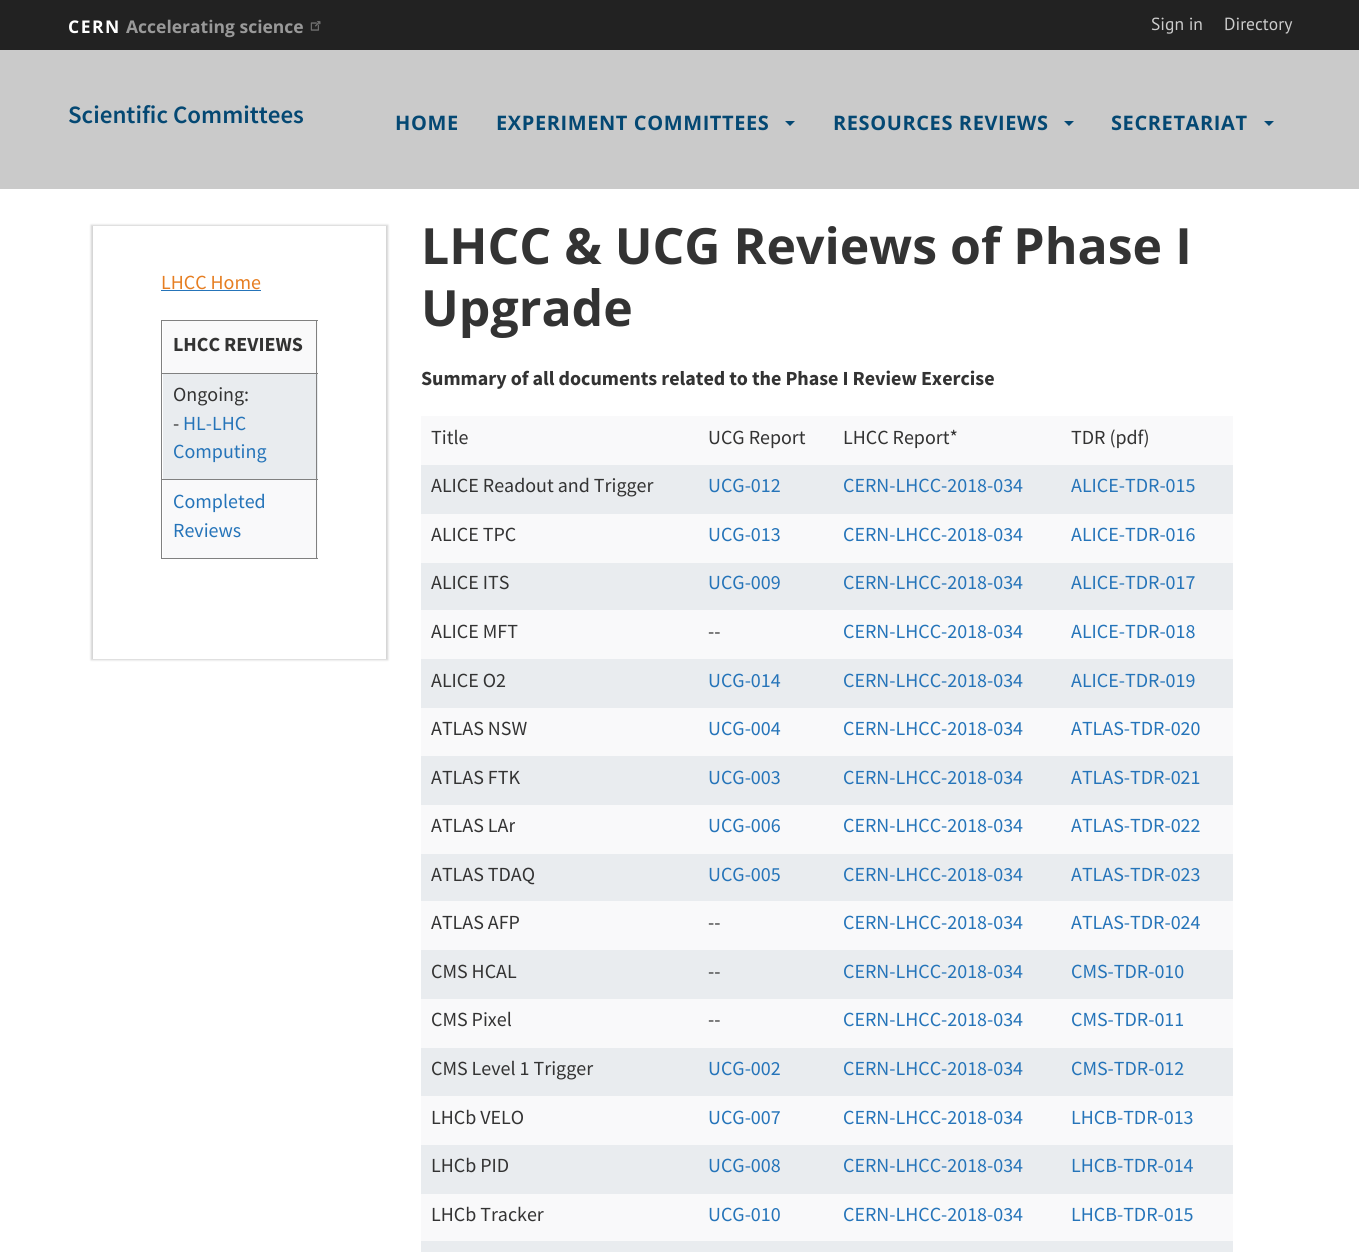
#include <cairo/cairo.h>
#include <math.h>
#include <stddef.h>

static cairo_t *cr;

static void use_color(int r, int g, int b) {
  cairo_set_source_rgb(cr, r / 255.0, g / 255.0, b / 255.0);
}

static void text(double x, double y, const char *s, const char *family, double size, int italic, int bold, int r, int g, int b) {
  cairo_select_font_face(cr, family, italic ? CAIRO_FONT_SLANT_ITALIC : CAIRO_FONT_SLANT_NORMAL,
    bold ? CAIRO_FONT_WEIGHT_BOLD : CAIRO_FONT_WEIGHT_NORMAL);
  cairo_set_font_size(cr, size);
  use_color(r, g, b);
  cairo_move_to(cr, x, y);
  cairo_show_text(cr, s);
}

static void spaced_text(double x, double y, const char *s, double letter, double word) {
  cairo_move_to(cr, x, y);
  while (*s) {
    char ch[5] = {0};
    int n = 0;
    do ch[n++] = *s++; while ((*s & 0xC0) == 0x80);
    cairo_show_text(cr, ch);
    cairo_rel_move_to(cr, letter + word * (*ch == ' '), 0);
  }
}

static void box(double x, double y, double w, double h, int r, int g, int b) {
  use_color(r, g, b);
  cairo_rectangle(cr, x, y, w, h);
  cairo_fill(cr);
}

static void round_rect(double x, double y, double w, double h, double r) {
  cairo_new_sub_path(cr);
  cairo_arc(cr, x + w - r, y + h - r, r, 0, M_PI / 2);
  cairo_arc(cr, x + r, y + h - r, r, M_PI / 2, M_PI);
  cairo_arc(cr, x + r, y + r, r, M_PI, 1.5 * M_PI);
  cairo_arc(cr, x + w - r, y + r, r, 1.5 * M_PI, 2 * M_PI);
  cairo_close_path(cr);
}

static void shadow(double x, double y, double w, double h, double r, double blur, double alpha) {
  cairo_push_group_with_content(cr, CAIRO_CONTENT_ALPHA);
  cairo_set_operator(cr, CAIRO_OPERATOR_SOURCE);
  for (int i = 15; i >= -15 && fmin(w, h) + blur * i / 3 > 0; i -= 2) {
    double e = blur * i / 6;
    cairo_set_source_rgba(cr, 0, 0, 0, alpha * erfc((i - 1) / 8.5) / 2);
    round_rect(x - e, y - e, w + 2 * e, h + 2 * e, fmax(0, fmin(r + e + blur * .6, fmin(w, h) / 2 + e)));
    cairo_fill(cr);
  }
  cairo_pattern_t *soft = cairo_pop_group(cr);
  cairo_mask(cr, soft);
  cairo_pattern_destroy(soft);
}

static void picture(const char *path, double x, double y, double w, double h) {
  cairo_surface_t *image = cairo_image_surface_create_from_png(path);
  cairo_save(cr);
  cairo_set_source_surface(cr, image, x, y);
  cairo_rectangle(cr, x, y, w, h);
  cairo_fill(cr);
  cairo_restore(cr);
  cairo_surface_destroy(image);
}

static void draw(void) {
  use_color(255, 255, 255);
  cairo_paint(cr);
  box(0, 0, 1359, 50, 34, 34, 34);
  picture("img_01.png", 310, 21, 11, 10);
  box(0, 50, 1359, 139, 202, 202, 202);
  use_color(4, 72, 115);
  cairo_new_path(cr);
  cairo_move_to(cr, 785, 121);
  cairo_line_to(cr, 795, 121);
  cairo_line_to(cr, 790, 126);
  cairo_close_path(cr);
  cairo_fill(cr);
  cairo_new_path(cr);
  cairo_move_to(cr, 1064, 121);
  cairo_line_to(cr, 1074, 121);
  cairo_line_to(cr, 1069, 126);
  cairo_close_path(cr);
  cairo_fill(cr);
  cairo_new_path(cr);
  cairo_move_to(cr, 1264, 121);
  cairo_line_to(cr, 1274, 121);
  cairo_line_to(cr, 1269, 126);
  cairo_close_path(cr);
  cairo_fill(cr);
  cairo_save(cr);
  cairo_set_fill_rule(cr, CAIRO_FILL_RULE_EVEN_ODD);
  cairo_new_path(cr);
  cairo_move_to(cr, 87, 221);
  cairo_line_to(cr, 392, 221);
  cairo_line_to(cr, 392, 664);
  cairo_line_to(cr, 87, 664);
  cairo_close_path(cr);
  cairo_move_to(cr, 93, 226);
  cairo_line_to(cr, 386, 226);
  cairo_line_to(cr, 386, 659);
  cairo_line_to(cr, 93, 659);
  cairo_close_path(cr);
  cairo_clip(cr);
  use_color(211, 211, 211);
  shadow(91, 225, 297, 435, 0, 1, 1);
  cairo_restore(cr);
  box(161, 290, 100, 1, 37, 116, 185);
  box(161, 320, 157, 1, 128, 128, 128);
  box(163, 321, 155, 52, 249, 249, 250);
  box(163, 374, 155, 105, 233, 236, 239);
  box(163, 480, 155, 78, 249, 249, 250);
  box(316, 320, 1, 239, 128, 128, 128);
  box(161, 558, 157, 1, 128, 128, 128);
  box(161, 320, 1, 239, 128, 128, 128);
  box(161, 373, 157, 1, 128, 128, 128);
  box(161, 479, 157, 1, 128, 128, 128);
  box(421, 416, 812, 49, 249, 249, 250);
  box(421, 465, 812, 49, 233, 236, 239);
  box(421, 514, 812, 49, 249, 249, 250);
  box(421, 563, 812, 47, 233, 236, 239);
  box(421, 610, 812, 49, 249, 249, 250);
  box(421, 659, 812, 49, 233, 236, 239);
  box(421, 708, 812, 48, 249, 249, 250);
  box(421, 756, 812, 49, 233, 236, 239);
  box(421, 805, 812, 49, 249, 249, 250);
  box(421, 854, 812, 47, 233, 236, 239);
  box(421, 901, 812, 49, 249, 249, 250);
  box(421, 950, 812, 49, 233, 236, 239);
  box(421, 999, 812, 49, 249, 249, 250);
  box(421, 1048, 812, 48, 233, 236, 239);
  box(421, 1096, 812, 49, 249, 249, 250);
  box(421, 1145, 812, 49, 233, 236, 239);
  box(421, 1194, 812, 47, 249, 249, 250);
  box(421, 1241, 812, 11, 233, 236, 239);
  cairo_select_font_face(cr, "Open Sans", CAIRO_FONT_SLANT_NORMAL, CAIRO_FONT_WEIGHT_BOLD);
  cairo_set_font_size(cr, 17.5);
  use_color(255, 255, 255);
  spaced_text(68, 33, "CERN", 1.5, 0);
  text(126, 33, "Accelerating science", "Open Sans", 17.5, 0, 1, 153, 153, 153);
  text(1151, 30, "Sign in", "PT Sans", 17.5, 0, 0, 204, 204, 204);
  text(1224, 30, "Directory", "PT Sans", 17.5, 0, 0, 204, 204, 204);
  text(68, 123, "Scientific Committees", "Source Sans Pro SemiBold", 25, 0, 0, 4, 72, 115);
  cairo_select_font_face(cr, "Open Sans", CAIRO_FONT_SLANT_NORMAL, CAIRO_FONT_WEIGHT_BOLD);
  cairo_set_font_size(cr, 20);
  spaced_text(395, 130, "HOME", 0.6, 0);
  spaced_text(496, 130, "EXPERIMENT COMMITTEES", 0.6, 0);
  spaced_text(833, 130, "RESOURCES REVIEWS", 0.6, 0);
  spaced_text(1111, 130, "SECRETARIAT", 0.6, 0);
  text(161, 289, "LHCC Home", "Source Sans Pro", 20, 0, 0, 230, 126, 34);
  text(173, 351, "LHCC REVIEWS", "Source Sans Pro", 20, 0, 1, 51, 51, 51);
  text(173, 401, "Ongoing:", "Source Sans Pro", 20, 0, 0, 51, 51, 51);
  text(173, 430, "-", "Source Sans Pro", 20, 0, 0, 51, 51, 51);
  text(183, 430, "HL-LHC", "Source Sans Pro", 20, 0, 0, 37, 116, 185);
  text(173, 458, "Computing", "Source Sans Pro", 20, 0, 0, 37, 116, 185);
  text(173, 508, "Completed", "Source Sans Pro", 20, 0, 0, 37, 116, 185);
  text(173, 537, "Reviews", "Source Sans Pro", 20, 0, 0, 37, 116, 185);
  text(421, 264, "LHCC & UCG Reviews of Phase I", "Open Sans", 50, 0, 1, 51, 51, 51);
  text(421, 326, "Upgrade", "Open Sans", 50, 0, 1, 51, 51, 51);
  text(421, 385, "Summary of all documents related to the Phase I Review Exercise", "Source Sans Pro", 20, 0, 1, 51, 51, 51);
  text(431, 444, "Title", "Source Sans Pro", 20, 0, 0, 51, 51, 51);
  text(708, 444, "UCG Report", "Source Sans Pro", 20, 0, 0, 51, 51, 51);
  text(843, 444, "LHCC Report*", "Source Sans Pro", 20, 0, 0, 51, 51, 51);
  text(1071, 444, "TDR (pdf)", "Source Sans Pro", 20, 0, 0, 51, 51, 51);
  text(431, 492, "ALICE Readout and Trigger", "Source Sans Pro", 20, 0, 0, 51, 51, 51);
  text(708, 492, "UCG-012", "Source Sans Pro", 20, 0, 0, 37, 116, 185);
  text(843, 492, "CERN-LHCC-2018-034", "Source Sans Pro", 20, 0, 0, 37, 116, 185);
  text(1071, 492, "ALICE-TDR-015", "Source Sans Pro", 20, 0, 0, 37, 116, 185);
  text(431, 541, "ALICE TPC", "Source Sans Pro", 20, 0, 0, 51, 51, 51);
  text(708, 541, "UCG-013", "Source Sans Pro", 20, 0, 0, 37, 116, 185);
  text(843, 541, "CERN-LHCC-2018-034", "Source Sans Pro", 20, 0, 0, 37, 116, 185);
  text(1071, 541, "ALICE-TDR-016", "Source Sans Pro", 20, 0, 0, 37, 116, 185);
  text(431, 589, "ALICE ITS", "Source Sans Pro", 20, 0, 0, 51, 51, 51);
  text(708, 589, "UCG-009", "Source Sans Pro", 20, 0, 0, 37, 116, 185);
  text(843, 589, "CERN-LHCC-2018-034", "Source Sans Pro", 20, 0, 0, 37, 116, 185);
  text(1071, 589, "ALICE-TDR-017", "Source Sans Pro", 20, 0, 0, 37, 116, 185);
  text(431, 638, "ALICE MFT", "Source Sans Pro", 20, 0, 0, 51, 51, 51);
  text(708, 638, "--", "Source Sans Pro", 20, 0, 0, 51, 51, 51);
  text(843, 638, "CERN-LHCC-2018-034", "Source Sans Pro", 20, 0, 0, 37, 116, 185);
  text(1071, 638, "ALICE-TDR-018", "Source Sans Pro", 20, 0, 0, 37, 116, 185);
  text(431, 687, "ALICE O2", "Source Sans Pro", 20, 0, 0, 51, 51, 51);
  text(708, 687, "UCG-014", "Source Sans Pro", 20, 0, 0, 37, 116, 185);
  text(843, 687, "CERN-LHCC-2018-034", "Source Sans Pro", 20, 0, 0, 37, 116, 185);
  text(1071, 687, "ALICE-TDR-019", "Source Sans Pro", 20, 0, 0, 37, 116, 185);
  text(431, 735, "ATLAS NSW", "Source Sans Pro", 20, 0, 0, 51, 51, 51);
  text(708, 735, "UCG-004", "Source Sans Pro", 20, 0, 0, 37, 116, 185);
  text(843, 735, "CERN-LHCC-2018-034", "Source Sans Pro", 20, 0, 0, 37, 116, 185);
  text(1071, 735, "ATLAS-TDR-020", "Source Sans Pro", 20, 0, 0, 37, 116, 185);
  text(431, 784, "ATLAS FTK", "Source Sans Pro", 20, 0, 0, 51, 51, 51);
  text(708, 784, "UCG-003", "Source Sans Pro", 20, 0, 0, 37, 116, 185);
  text(843, 784, "CERN-LHCC-2018-034", "Source Sans Pro", 20, 0, 0, 37, 116, 185);
  text(1071, 784, "ATLAS-TDR-021", "Source Sans Pro", 20, 0, 0, 37, 116, 185);
  text(431, 832, "ATLAS LAr", "Source Sans Pro", 20, 0, 0, 51, 51, 51);
  text(708, 832, "UCG-006", "Source Sans Pro", 20, 0, 0, 37, 116, 185);
  text(843, 832, "CERN-LHCC-2018-034", "Source Sans Pro", 20, 0, 0, 37, 116, 185);
  text(1071, 832, "ATLAS-TDR-022", "Source Sans Pro", 20, 0, 0, 37, 116, 185);
  text(431, 881, "ATLAS TDAQ", "Source Sans Pro", 20, 0, 0, 51, 51, 51);
  text(708, 881, "UCG-005", "Source Sans Pro", 20, 0, 0, 37, 116, 185);
  text(843, 881, "CERN-LHCC-2018-034", "Source Sans Pro", 20, 0, 0, 37, 116, 185);
  text(1071, 881, "ATLAS-TDR-023", "Source Sans Pro", 20, 0, 0, 37, 116, 185);
  text(431, 929, "ATLAS AFP", "Source Sans Pro", 20, 0, 0, 51, 51, 51);
  text(708, 929, "--", "Source Sans Pro", 20, 0, 0, 51, 51, 51);
  text(843, 929, "CERN-LHCC-2018-034", "Source Sans Pro", 20, 0, 0, 37, 116, 185);
  text(1071, 929, "ATLAS-TDR-024", "Source Sans Pro", 20, 0, 0, 37, 116, 185);
  text(431, 978, "CMS HCAL", "Source Sans Pro", 20, 0, 0, 51, 51, 51);
  text(708, 978, "--", "Source Sans Pro", 20, 0, 0, 51, 51, 51);
  text(843, 978, "CERN-LHCC-2018-034", "Source Sans Pro", 20, 0, 0, 37, 116, 185);
  text(1071, 978, "CMS-TDR-010", "Source Sans Pro", 20, 0, 0, 37, 116, 185);
  text(431, 1026, "CMS Pixel", "Source Sans Pro", 20, 0, 0, 51, 51, 51);
  text(708, 1026, "--", "Source Sans Pro", 20, 0, 0, 51, 51, 51);
  text(843, 1026, "CERN-LHCC-2018-034", "Source Sans Pro", 20, 0, 0, 37, 116, 185);
  text(1071, 1026, "CMS-TDR-011", "Source Sans Pro", 20, 0, 0, 37, 116, 185);
  text(431, 1075, "CMS Level 1 Trigger", "Source Sans Pro", 20, 0, 0, 51, 51, 51);
  text(708, 1075, "UCG-002", "Source Sans Pro", 20, 0, 0, 37, 116, 185);
  text(843, 1075, "CERN-LHCC-2018-034", "Source Sans Pro", 20, 0, 0, 37, 116, 185);
  text(1071, 1075, "CMS-TDR-012", "Source Sans Pro", 20, 0, 0, 37, 116, 185);
  text(431, 1124, "LHCb VELO", "Source Sans Pro", 20, 0, 0, 51, 51, 51);
  text(708, 1124, "UCG-007", "Source Sans Pro", 20, 0, 0, 37, 116, 185);
  text(843, 1124, "CERN-LHCC-2018-034", "Source Sans Pro", 20, 0, 0, 37, 116, 185);
  text(1071, 1124, "LHCB-TDR-013", "Source Sans Pro", 20, 0, 0, 37, 116, 185);
  text(431, 1172, "LHCb PID", "Source Sans Pro", 20, 0, 0, 51, 51, 51);
  text(708, 1172, "UCG-008", "Source Sans Pro", 20, 0, 0, 37, 116, 185);
  text(843, 1172, "CERN-LHCC-2018-034", "Source Sans Pro", 20, 0, 0, 37, 116, 185);
  text(1071, 1172, "LHCB-TDR-014", "Source Sans Pro", 20, 0, 0, 37, 116, 185);
  text(431, 1221, "LHCb Tracker", "Source Sans Pro", 20, 0, 0, 51, 51, 51);
  text(708, 1221, "UCG-010", "Source Sans Pro", 20, 0, 0, 37, 116, 185);
  text(843, 1221, "CERN-LHCC-2018-034", "Source Sans Pro", 20, 0, 0, 37, 116, 185);
  text(1071, 1221, "LHCB-TDR-015", "Source Sans Pro", 20, 0, 0, 37, 116, 185);
}

int main(void) {
  cairo_surface_t *surface = cairo_image_surface_create(CAIRO_FORMAT_RGB24, 1359, 1252);
  cr = cairo_create(surface);
  cairo_font_options_t *options = cairo_font_options_create();
  cairo_font_options_set_hint_metrics(options, CAIRO_HINT_METRICS_OFF);
  cairo_font_options_set_hint_style(options, CAIRO_HINT_STYLE_NONE);
  cairo_set_font_options(cr, options);
  cairo_set_miter_limit(cr, 4);
  draw();
  cairo_surface_write_to_png(surface, "out.png");
  cairo_font_options_destroy(options);
  cairo_destroy(cr);
  cairo_surface_destroy(surface);
  return 0;
}
